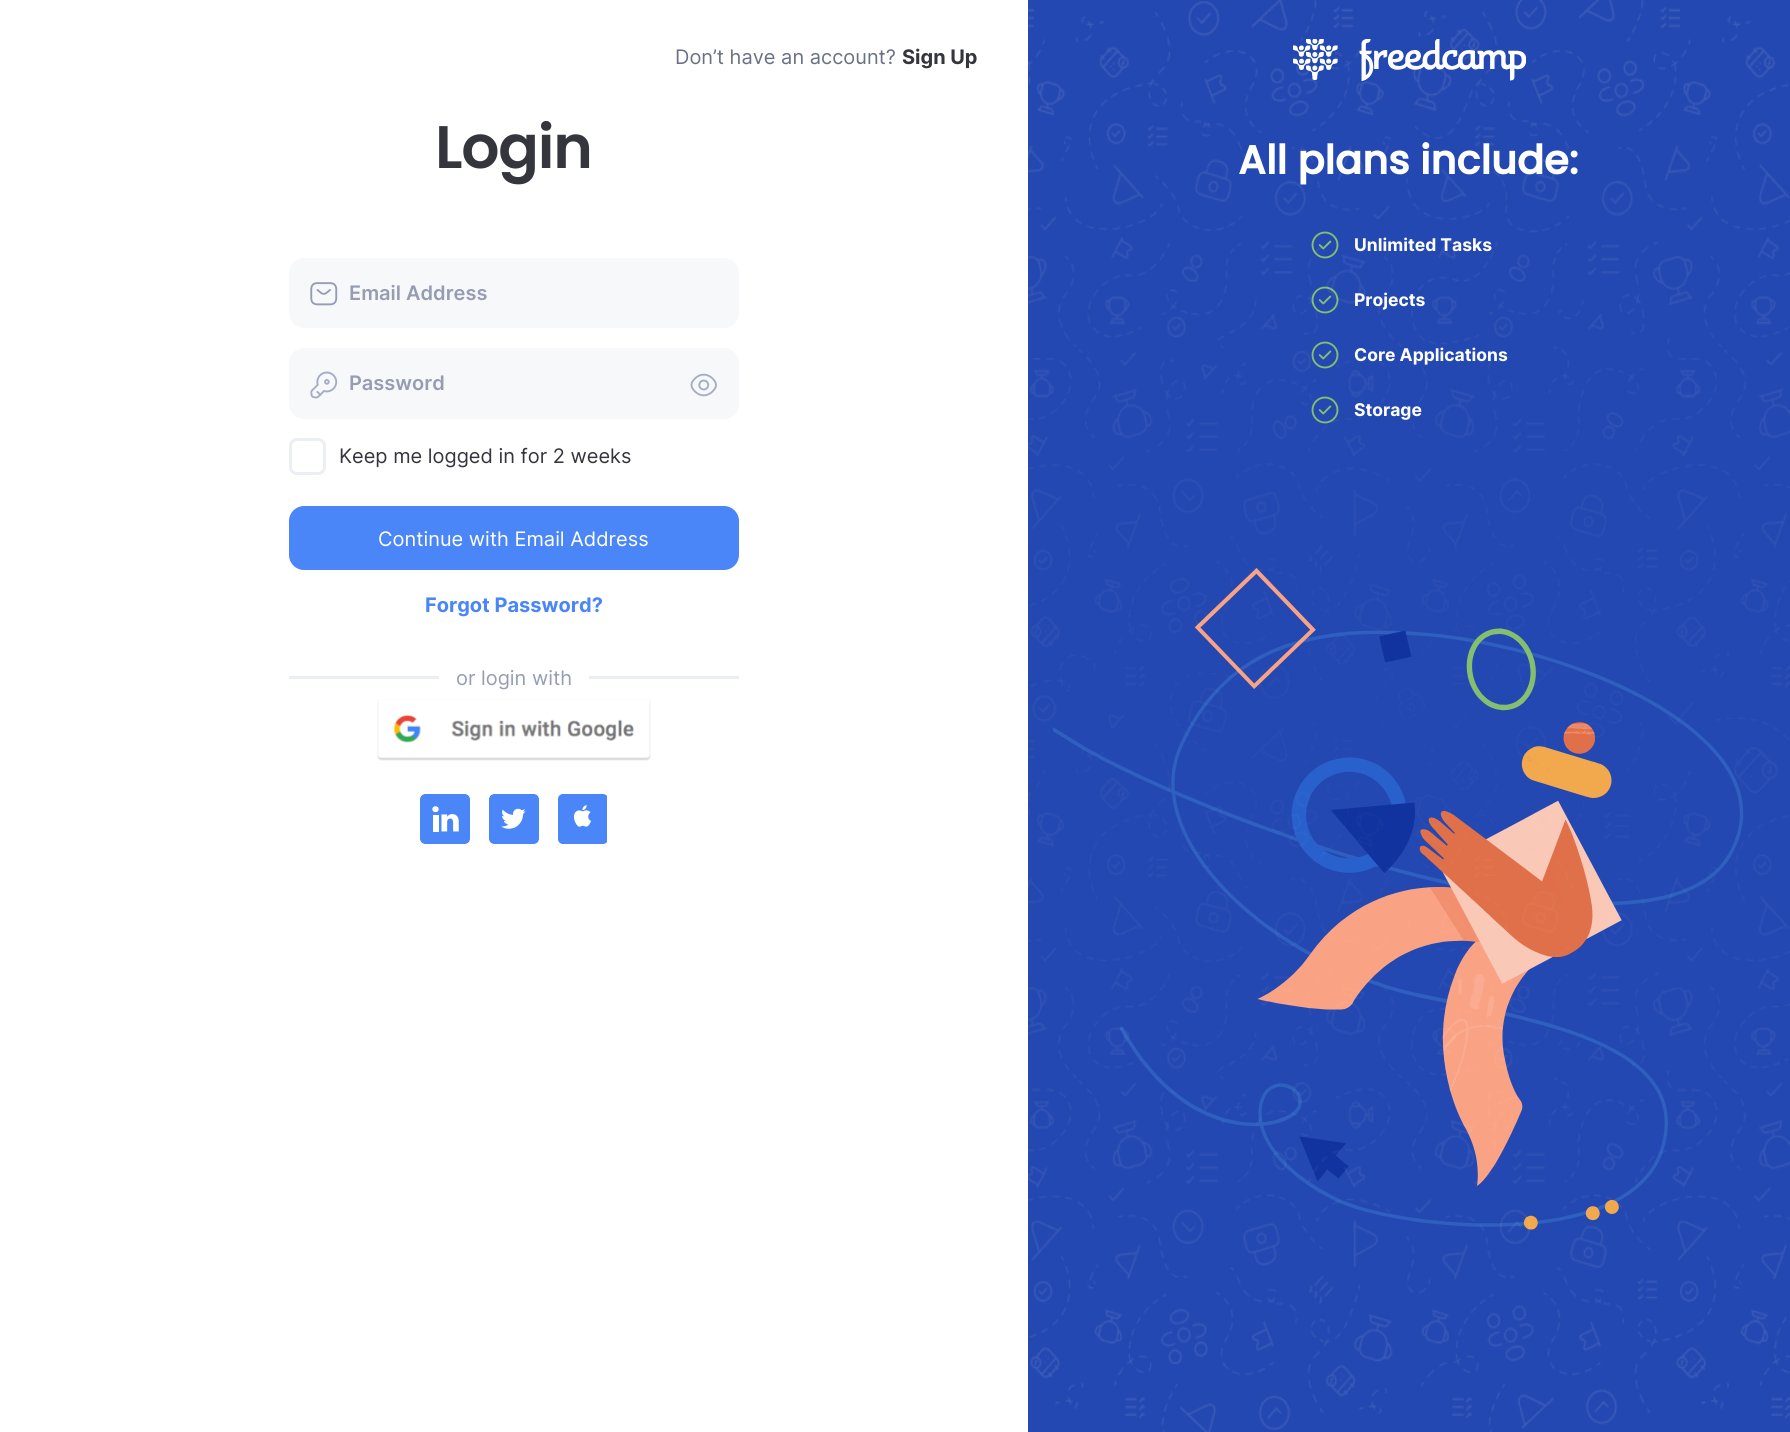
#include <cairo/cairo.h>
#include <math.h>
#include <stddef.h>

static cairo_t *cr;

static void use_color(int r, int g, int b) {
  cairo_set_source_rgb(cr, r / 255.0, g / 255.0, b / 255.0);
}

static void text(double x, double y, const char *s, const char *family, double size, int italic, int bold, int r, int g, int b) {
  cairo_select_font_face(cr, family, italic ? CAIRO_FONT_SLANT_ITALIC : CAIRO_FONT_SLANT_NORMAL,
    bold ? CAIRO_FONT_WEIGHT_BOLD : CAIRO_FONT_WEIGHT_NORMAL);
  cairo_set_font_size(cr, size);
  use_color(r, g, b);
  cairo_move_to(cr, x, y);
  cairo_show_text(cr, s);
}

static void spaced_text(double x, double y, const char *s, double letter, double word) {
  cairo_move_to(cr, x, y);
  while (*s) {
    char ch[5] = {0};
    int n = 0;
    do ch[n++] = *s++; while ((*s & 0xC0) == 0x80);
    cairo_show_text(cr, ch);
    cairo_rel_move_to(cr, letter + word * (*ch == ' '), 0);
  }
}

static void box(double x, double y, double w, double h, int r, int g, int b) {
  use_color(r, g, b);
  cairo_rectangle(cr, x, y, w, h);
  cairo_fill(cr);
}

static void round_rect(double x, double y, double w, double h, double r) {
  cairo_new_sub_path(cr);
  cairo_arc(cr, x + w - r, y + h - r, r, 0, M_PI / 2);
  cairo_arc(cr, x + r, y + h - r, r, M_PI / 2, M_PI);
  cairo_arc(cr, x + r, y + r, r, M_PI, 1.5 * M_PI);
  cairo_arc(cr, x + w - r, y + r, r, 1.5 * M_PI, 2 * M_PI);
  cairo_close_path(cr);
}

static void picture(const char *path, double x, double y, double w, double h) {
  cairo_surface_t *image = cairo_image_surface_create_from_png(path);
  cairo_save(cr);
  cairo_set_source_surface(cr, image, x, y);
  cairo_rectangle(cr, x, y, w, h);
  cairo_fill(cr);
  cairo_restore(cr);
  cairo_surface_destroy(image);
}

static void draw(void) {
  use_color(255, 255, 255);
  cairo_paint(cr);
  use_color(247, 248, 250);
  round_rect(289, 258, 450, 70, 15);
  cairo_fill(cr);
  picture("img_01.png", 310, 282, 28, 24);
  round_rect(289, 348, 450, 71, 15);
  cairo_fill(cr);
  picture("img_02.png", 310, 371, 28, 28);
  picture("img_03.png", 690, 373, 27, 24);
  round_rect(290.5, 439.5, 34, 34, 6.5);
  use_color(235, 238, 242);
  cairo_set_line_width(cr, 3);
  cairo_stroke(cr);
  use_color(74, 134, 247);
  round_rect(289, 506, 450, 64, 15);
  cairo_fill(cr);
  box(289, 676, 450, 3, 235, 238, 242);
  box(439, 676, 150, 3, 255, 255, 255);
  picture("img_04.png", 377, 699, 274, 62);
  picture("img_05.png", 420, 794, 50, 50);
  picture("img_06.png", 489, 794, 50, 50);
  picture("img_07.png", 558, 794, 49, 50);
  box(1028, 0, 762, 1432, 36, 72, 177);
  picture("img_09.png", 1293, 39, 233, 42);
  picture("img_10.png", 1311, 231, 28, 28);
  picture("img_10.png", 1311, 286, 28, 28);
  picture("img_10.png", 1311, 341, 28, 28);
  picture("img_10.png", 1311, 396, 28, 28);
  picture("img_11.png", 1053, 568, 691, 662);
  text(675, 64, "Don’t have an account?", "Inter", 20, 0, 0, 106, 113, 133);
  text(902, 64, "Sign Up", "Inter", 20, 0, 1, 53, 53, 61);
  cairo_select_font_face(cr, "Poppins SemiBold", CAIRO_FONT_SLANT_NORMAL, CAIRO_FONT_WEIGHT_NORMAL);
  cairo_set_font_size(cr, 60);
  spaced_text(435, 168, "Login", -1.25, 0);
  text(349, 300, "Email Address", "Inter SemiBold", 20, 0, 0, 150, 157, 179);
  text(349, 390, "Password", "Inter SemiBold", 20, 0, 0, 150, 157, 179);
  text(339, 463, "Keep me logged in for 2 weeks", "Inter", 20, 0, 0, 53, 53, 61);
  text(378, 546, "Continue with Email Address", "Inter", 20, 0, 0, 255, 255, 255);
  text(425, 612, "Forgot Password?", "Inter", 20, 0, 1, 74, 134, 247);
  text(456, 685, "or login with", "Inter", 20, 0, 0, 150, 157, 179);
  text(1238, 174, "All plans include:", "Poppins", 40, 0, 1, 255, 255, 255);
  text(1354, 251, "Unlimited Tasks", "Inter", 17.5, 0, 1, 255, 255, 255);
  text(1354, 306, "Projects", "Inter", 17.5, 0, 1, 255, 255, 255);
  text(1354, 361, "Core Applications", "Inter", 17.5, 0, 1, 255, 255, 255);
  text(1354, 416, "Storage", "Inter", 17.5, 0, 1, 255, 255, 255);
  picture("img_08.png", 1028, 0, 762, 1432);
}

int main(void) {
  cairo_surface_t *surface = cairo_image_surface_create(CAIRO_FORMAT_RGB24, 1790, 1432);
  cr = cairo_create(surface);
  cairo_font_options_t *options = cairo_font_options_create();
  cairo_font_options_set_hint_metrics(options, CAIRO_HINT_METRICS_OFF);
  cairo_font_options_set_hint_style(options, CAIRO_HINT_STYLE_NONE);
  cairo_set_font_options(cr, options);
  cairo_set_miter_limit(cr, 4);
  draw();
  cairo_surface_write_to_png(surface, "out.png");
  cairo_font_options_destroy(options);
  cairo_destroy(cr);
  cairo_surface_destroy(surface);
  return 0;
}
